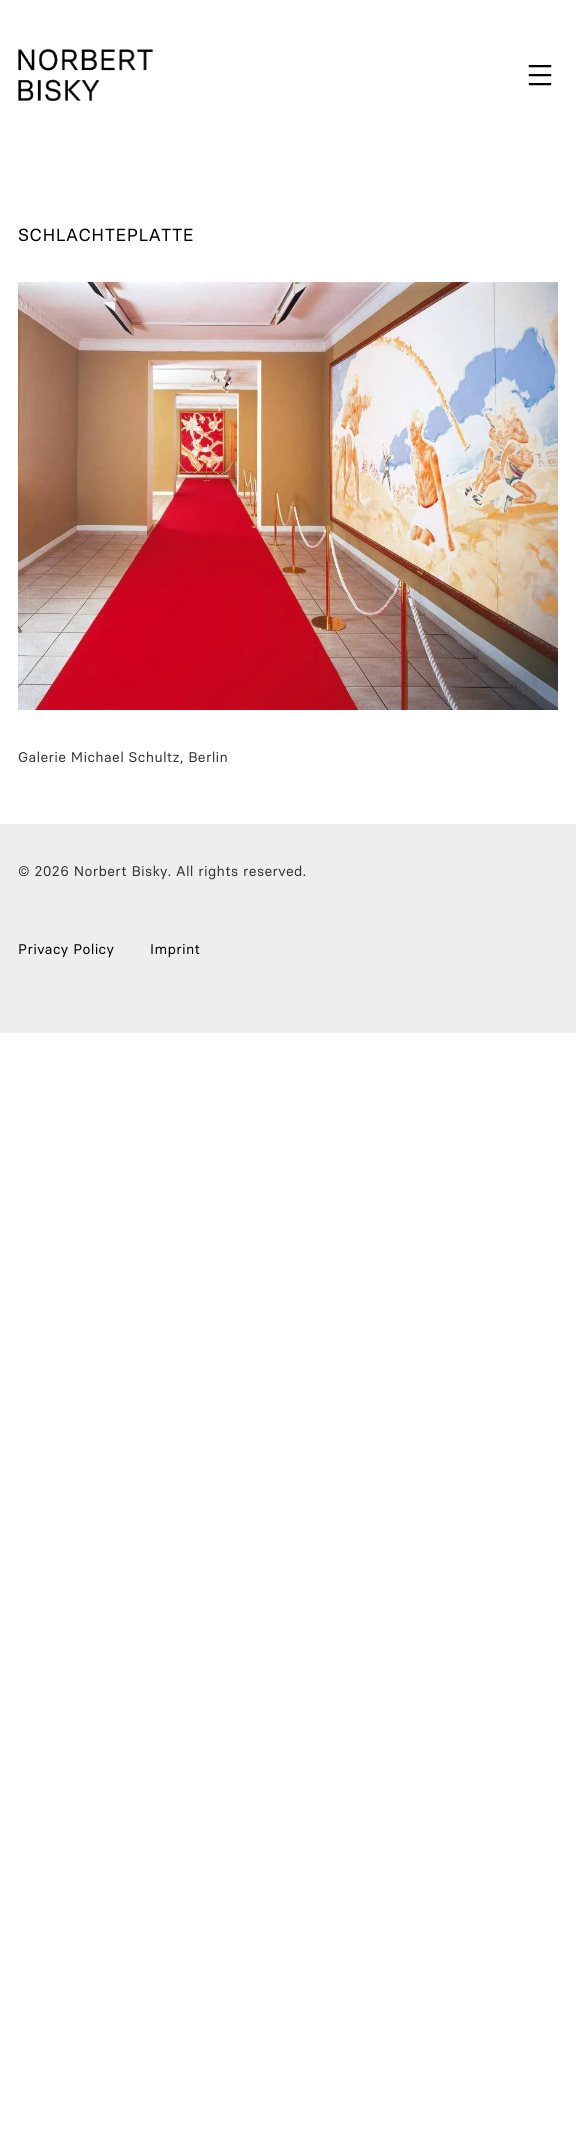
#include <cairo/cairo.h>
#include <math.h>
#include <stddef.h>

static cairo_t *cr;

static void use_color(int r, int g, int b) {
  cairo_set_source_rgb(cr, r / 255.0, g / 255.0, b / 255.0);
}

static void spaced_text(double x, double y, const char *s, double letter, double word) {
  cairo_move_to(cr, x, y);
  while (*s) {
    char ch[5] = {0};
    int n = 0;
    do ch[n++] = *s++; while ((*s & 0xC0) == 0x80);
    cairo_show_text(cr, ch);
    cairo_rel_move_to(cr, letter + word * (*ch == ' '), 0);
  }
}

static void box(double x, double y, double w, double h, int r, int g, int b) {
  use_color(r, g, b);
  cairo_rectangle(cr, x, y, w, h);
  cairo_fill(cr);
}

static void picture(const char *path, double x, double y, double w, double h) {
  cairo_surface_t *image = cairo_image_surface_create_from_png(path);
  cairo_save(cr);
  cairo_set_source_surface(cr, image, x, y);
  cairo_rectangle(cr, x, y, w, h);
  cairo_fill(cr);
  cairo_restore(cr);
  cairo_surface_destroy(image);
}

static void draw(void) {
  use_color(255, 255, 255);
  cairo_paint(cr);
  picture("img_01.png", 18, 49, 136, 52);
  picture("img_02.png", 528, 65, 24, 21);
  picture("img_03.png", 18, 282, 540, 428);
  box(0, 824, 576, 209, 238, 238, 238);
  cairo_select_font_face(cr, "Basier", CAIRO_FONT_SLANT_NORMAL, CAIRO_FONT_WEIGHT_NORMAL);
  cairo_set_font_size(cr, 17.5);
  use_color(0, 0, 0);
  spaced_text(18, 241, "SCHLACHTEPLATTE", 0.5, 0);
  cairo_set_font_size(cr, 14);
  use_color(51, 51, 51);
  spaced_text(18, 762, "Galerie Michael Schultz, Berlin", 0.35, 0);
  spaced_text(18, 876, "© 2026 Norbert Bisky. All rights reserved.", 0.35, 0);
  use_color(0, 0, 0);
  spaced_text(18, 954, "Privacy Policy", 0.35, 0);
  spaced_text(150, 954, "Imprint", 0.35, 0);
}

int main(void) {
  cairo_surface_t *surface = cairo_image_surface_create(CAIRO_FORMAT_RGB24, 576, 2129);
  cr = cairo_create(surface);
  cairo_font_options_t *options = cairo_font_options_create();
  cairo_font_options_set_hint_metrics(options, CAIRO_HINT_METRICS_OFF);
  cairo_font_options_set_hint_style(options, CAIRO_HINT_STYLE_NONE);
  cairo_set_font_options(cr, options);
  cairo_set_miter_limit(cr, 4);
  draw();
  cairo_surface_write_to_png(surface, "out.png");
  cairo_font_options_destroy(options);
  cairo_destroy(cr);
  cairo_surface_destroy(surface);
  return 0;
}
